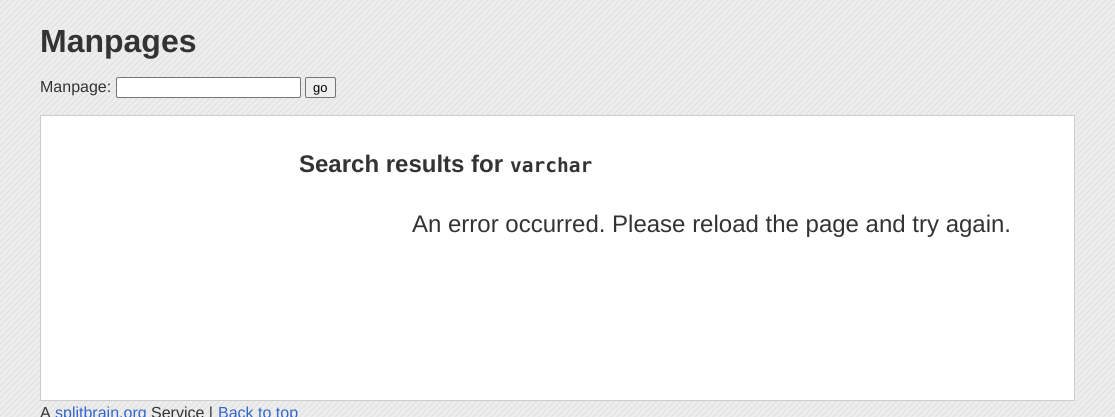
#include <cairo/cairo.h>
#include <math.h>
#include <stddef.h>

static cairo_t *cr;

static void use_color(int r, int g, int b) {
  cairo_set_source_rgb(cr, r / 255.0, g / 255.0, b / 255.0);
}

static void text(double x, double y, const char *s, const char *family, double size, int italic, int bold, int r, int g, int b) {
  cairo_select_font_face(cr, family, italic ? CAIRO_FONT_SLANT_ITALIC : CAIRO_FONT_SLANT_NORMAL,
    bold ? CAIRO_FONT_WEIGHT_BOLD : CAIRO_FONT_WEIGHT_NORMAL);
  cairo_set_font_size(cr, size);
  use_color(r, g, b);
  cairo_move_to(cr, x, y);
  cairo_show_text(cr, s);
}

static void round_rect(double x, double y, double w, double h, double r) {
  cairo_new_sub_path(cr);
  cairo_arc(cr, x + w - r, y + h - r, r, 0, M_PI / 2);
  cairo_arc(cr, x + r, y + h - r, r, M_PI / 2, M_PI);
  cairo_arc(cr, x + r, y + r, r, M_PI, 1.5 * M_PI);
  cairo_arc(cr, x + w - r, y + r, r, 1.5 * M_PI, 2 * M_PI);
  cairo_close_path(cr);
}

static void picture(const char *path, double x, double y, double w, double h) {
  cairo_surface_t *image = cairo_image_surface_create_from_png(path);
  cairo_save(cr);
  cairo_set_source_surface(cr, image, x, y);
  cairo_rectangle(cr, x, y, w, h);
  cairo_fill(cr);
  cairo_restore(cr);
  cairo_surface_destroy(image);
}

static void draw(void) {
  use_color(255, 255, 255);
  cairo_paint(cr);
  picture("img_01.png", 0, 0, 1115, 417);
  use_color(255, 255, 255);
  round_rect(116.5, 77.5, 184, 20, 1.5);
  cairo_fill_preserve(cr);
  use_color(118, 118, 118);
  cairo_set_line_width(cr, 1);
  cairo_stroke(cr);
  use_color(239, 239, 239);
  round_rect(305.5, 77.5, 30, 20, 1.5);
  cairo_fill_preserve(cr);
  use_color(118, 118, 118);
  cairo_stroke(cr);
  use_color(255, 255, 255);
  cairo_rectangle(cr, 40.5, 115.5, 1034, 285);
  cairo_fill_preserve(cr);
  use_color(204, 204, 204);
  cairo_stroke(cr);
  text(40, 52, "Manpages", "Liberation Sans", 32, 0, 1, 51, 51, 51);
  text(40, 92, "Manpage:", "Liberation Sans", 16, 0, 0, 51, 51, 51);
  text(313, 92, "go", "Liberation Sans", 13, 0, 0, 0, 0, 0);
  text(299, 172, "Search results for", "Liberation Sans", 24, 0, 1, 51, 51, 51);
  text(510, 172, "varchar", "DejaVu Sans Mono", 19.5, 0, 1, 51, 51, 51);
  text(412, 232, "An error occurred. Please reload the page and try again.", "Liberation Sans", 24, 0, 0, 51, 51, 51);
  text(40, 418, "A", "Liberation Sans", 16, 0, 0, 51, 51, 51);
  text(55, 418, "splitbrain.org", "Liberation Sans", 16, 0, 0, 51, 102, 204);
  text(151, 418, "Service |", "Liberation Sans", 16, 0, 0, 51, 51, 51);
  text(218, 418, "Back to top", "Liberation Sans", 16, 0, 0, 51, 102, 204);
}

int main(void) {
  cairo_surface_t *surface = cairo_image_surface_create(CAIRO_FORMAT_RGB24, 1115, 417);
  cr = cairo_create(surface);
  cairo_font_options_t *options = cairo_font_options_create();
  cairo_font_options_set_hint_metrics(options, CAIRO_HINT_METRICS_OFF);
  cairo_font_options_set_hint_style(options, CAIRO_HINT_STYLE_NONE);
  cairo_set_font_options(cr, options);
  cairo_set_miter_limit(cr, 4);
  draw();
  cairo_surface_write_to_png(surface, "out.png");
  cairo_font_options_destroy(options);
  cairo_destroy(cr);
  cairo_surface_destroy(surface);
  return 0;
}
